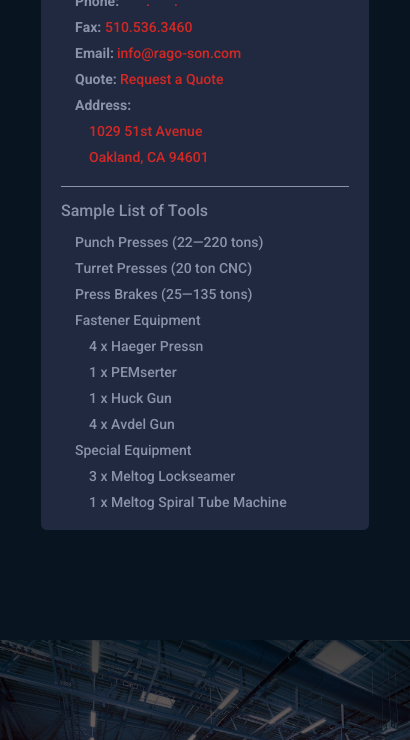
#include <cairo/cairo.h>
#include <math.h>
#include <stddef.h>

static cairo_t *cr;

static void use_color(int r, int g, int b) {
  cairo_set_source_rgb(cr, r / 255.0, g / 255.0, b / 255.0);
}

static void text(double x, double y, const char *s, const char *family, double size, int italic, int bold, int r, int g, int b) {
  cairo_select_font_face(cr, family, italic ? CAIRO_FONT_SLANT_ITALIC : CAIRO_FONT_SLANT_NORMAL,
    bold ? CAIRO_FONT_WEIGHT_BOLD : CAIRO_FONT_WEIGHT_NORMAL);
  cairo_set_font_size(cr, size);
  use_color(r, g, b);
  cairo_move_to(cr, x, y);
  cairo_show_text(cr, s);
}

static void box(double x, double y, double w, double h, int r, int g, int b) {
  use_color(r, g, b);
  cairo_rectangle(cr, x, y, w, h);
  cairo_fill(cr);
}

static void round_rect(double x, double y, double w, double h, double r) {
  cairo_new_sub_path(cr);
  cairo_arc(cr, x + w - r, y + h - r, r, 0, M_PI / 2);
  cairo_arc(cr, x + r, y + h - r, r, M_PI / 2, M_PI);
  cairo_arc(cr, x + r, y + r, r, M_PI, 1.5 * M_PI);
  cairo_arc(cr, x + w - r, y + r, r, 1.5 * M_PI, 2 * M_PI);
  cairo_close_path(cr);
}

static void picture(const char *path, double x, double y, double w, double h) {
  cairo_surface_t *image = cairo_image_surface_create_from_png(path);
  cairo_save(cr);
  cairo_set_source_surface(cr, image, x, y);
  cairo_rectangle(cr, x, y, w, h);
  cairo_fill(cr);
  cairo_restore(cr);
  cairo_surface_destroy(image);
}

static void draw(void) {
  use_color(9, 20, 33);
  cairo_paint(cr);
  use_color(32, 41, 64);
  round_rect(41, -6, 328, 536, 6);
  cairo_fill(cr);
  box(61, 186, 288, 1, 139, 146, 169);
  picture("img_01.png", 0, 640, 410, 100);
  text(75, 6, "Phone:", "Roboto", 14, 0, 1, 139, 146, 169);
  text(146, 6, ".", "Roboto Medium", 14, 0, 0, 210, 40, 36);
  text(174, 6, ".", "Roboto Medium", 14, 0, 0, 210, 40, 36);
  text(75, 32, "Fax:", "Roboto", 14, 0, 1, 139, 146, 169);
  text(105, 32, "510.536.3460", "Roboto Medium", 14, 0, 0, 210, 40, 36);
  text(75, 58, "Email:", "Roboto", 14, 0, 1, 139, 146, 169);
  text(117, 58, "info@rago-son.com", "Roboto Medium", 14, 0, 0, 210, 40, 36);
  text(75, 84, "Quote:", "Roboto", 14, 0, 1, 139, 146, 169);
  text(120, 84, "Request a Quote", "Roboto Medium", 14, 0, 0, 210, 40, 36);
  text(75, 110, "Address:", "Roboto", 14, 0, 1, 139, 146, 169);
  text(89, 136, "1029 51st Avenue", "Roboto Medium", 14, 0, 0, 210, 40, 36);
  text(89, 162, "Oakland, CA 94601", "Roboto Medium", 14, 0, 0, 210, 40, 36);
  text(61, 216, "Sample List of Tools", "Roboto Medium", 16, 0, 0, 139, 146, 169);
  text(75, 247, "Punch Presses (22—220 tons)", "Roboto Medium", 14, 0, 0, 139, 146, 169);
  text(75, 273, "Turret Presses (20 ton CNC)", "Roboto Medium", 14, 0, 0, 139, 146, 169);
  text(75, 299, "Press Brakes (25—135 tons)", "Roboto Medium", 14, 0, 0, 139, 146, 169);
  text(75, 325, "Fastener Equipment", "Roboto Medium", 14, 0, 0, 139, 146, 169);
  text(89, 351, "4 x Haeger Pressn", "Roboto Medium", 14, 0, 0, 139, 146, 169);
  text(89, 377, "1 x PEMserter", "Roboto Medium", 14, 0, 0, 139, 146, 169);
  text(89, 403, "1 x Huck Gun", "Roboto Medium", 14, 0, 0, 139, 146, 169);
  text(89, 429, "4 x Avdel Gun", "Roboto Medium", 14, 0, 0, 139, 146, 169);
  text(75, 455, "Special Equipment", "Roboto Medium", 14, 0, 0, 139, 146, 169);
  text(89, 481, "3 x Meltog Lockseamer", "Roboto Medium", 14, 0, 0, 139, 146, 169);
  text(89, 507, "1 x Meltog Spiral Tube Machine", "Roboto Medium", 14, 0, 0, 139, 146, 169);
}

int main(void) {
  cairo_surface_t *surface = cairo_image_surface_create(CAIRO_FORMAT_RGB24, 410, 740);
  cr = cairo_create(surface);
  cairo_font_options_t *options = cairo_font_options_create();
  cairo_font_options_set_hint_metrics(options, CAIRO_HINT_METRICS_OFF);
  cairo_font_options_set_hint_style(options, CAIRO_HINT_STYLE_NONE);
  cairo_set_font_options(cr, options);
  cairo_set_miter_limit(cr, 4);
  draw();
  cairo_surface_write_to_png(surface, "out.png");
  cairo_font_options_destroy(options);
  cairo_destroy(cr);
  cairo_surface_destroy(surface);
  return 0;
}
